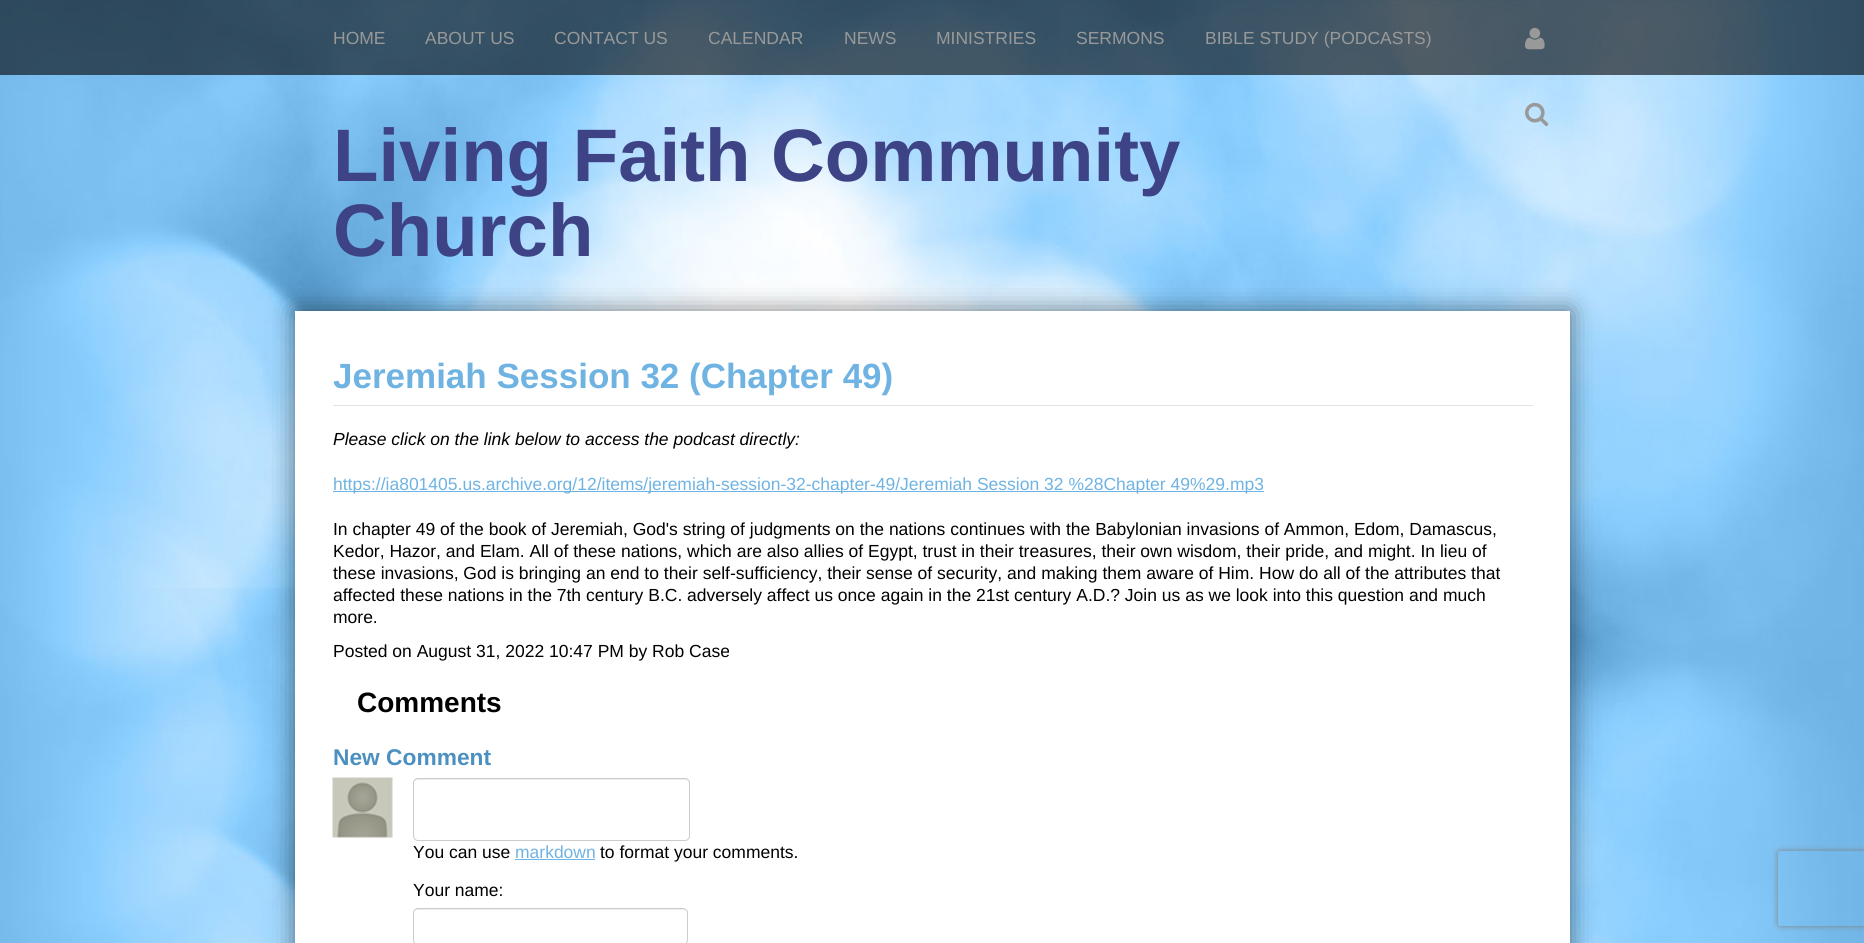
#include <cairo/cairo.h>
#include <math.h>
#include <stddef.h>

static cairo_t *cr;

static void use_color(int r, int g, int b) {
  cairo_set_source_rgb(cr, r / 255.0, g / 255.0, b / 255.0);
}

static void text(double x, double y, const char *s, const char *family, double size, int italic, int bold, int r, int g, int b) {
  cairo_select_font_face(cr, family, italic ? CAIRO_FONT_SLANT_ITALIC : CAIRO_FONT_SLANT_NORMAL,
    bold ? CAIRO_FONT_WEIGHT_BOLD : CAIRO_FONT_WEIGHT_NORMAL);
  cairo_set_font_size(cr, size);
  use_color(r, g, b);
  cairo_move_to(cr, x, y);
  cairo_show_text(cr, s);
}

static void box(double x, double y, double w, double h, int r, int g, int b) {
  use_color(r, g, b);
  cairo_rectangle(cr, x, y, w, h);
  cairo_fill(cr);
}

static void round_rect(double x, double y, double w, double h, double r) {
  cairo_new_sub_path(cr);
  cairo_arc(cr, x + w - r, y + h - r, r, 0, M_PI / 2);
  cairo_arc(cr, x + r, y + h - r, r, M_PI / 2, M_PI);
  cairo_arc(cr, x + r, y + r, r, M_PI, 1.5 * M_PI);
  cairo_arc(cr, x + w - r, y + r, r, 1.5 * M_PI, 2 * M_PI);
  cairo_close_path(cr);
}

static void shadow(double x, double y, double w, double h, double r, double blur, double alpha) {
  cairo_push_group_with_content(cr, CAIRO_CONTENT_ALPHA);
  cairo_set_operator(cr, CAIRO_OPERATOR_SOURCE);
  for (int i = 15; i >= -15 && fmin(w, h) + blur * i / 3 > 0; i -= 2) {
    double e = blur * i / 6;
    cairo_set_source_rgba(cr, 0, 0, 0, alpha * erfc((i - 1) / 8.5) / 2);
    round_rect(x - e, y - e, w + 2 * e, h + 2 * e, fmax(0, fmin(r + e + blur * .6, fmin(w, h) / 2 + e)));
    cairo_fill(cr);
  }
  cairo_pattern_t *soft = cairo_pop_group(cr);
  cairo_mask(cr, soft);
  cairo_pattern_destroy(soft);
}

static void picture(const char *path, double x, double y, double w, double h) {
  cairo_surface_t *image = cairo_image_surface_create_from_png(path);
  cairo_save(cr);
  cairo_set_source_surface(cr, image, x, y);
  cairo_rectangle(cr, x, y, w, h);
  cairo_fill(cr);
  cairo_restore(cr);
  cairo_surface_destroy(image);
}

static void draw(void) {
  use_color(255, 255, 255);
  cairo_paint(cr);
  picture("img_01.png", 0, 0, 1864, 943);
  cairo_set_source_rgba(cr, 0, 0, 0, 0.6);
  cairo_rectangle(cr, 0, 0, 1864, 75);
  cairo_fill(cr);
  picture("img_02.png", 1525, 27, 20, 23);
  picture("img_03.png", 1525, 102, 24, 24);
  use_color(0, 0, 0);
  shadow(295, 311, 1275, 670, 0, 12.5, 0.5);
  box(295, 311, 1275, 632, 255, 255, 255);
  box(333, 405, 1200, 1, 227, 227, 227);
  box(333, 491, 931, 1, 111, 179, 227);
  picture("img_04.png", 332, 777, 61, 61);
  use_color(236, 236, 236);
  cairo_new_path(cr);
  cairo_move_to(cr, 418, 780);
  cairo_line_to(cr, 685, 780);
  cairo_curve_to(cr, 687, 780, 689, 782, 689, 784);
  cairo_curve_to(cr, 689, 781, 688, 779, 685, 779);
  cairo_line_to(cr, 418, 779);
  cairo_curve_to(cr, 415, 779, 414, 781, 414, 784);
  cairo_curve_to(cr, 414, 782, 415, 780, 418, 780);
  cairo_close_path(cr);
  cairo_fill(cr);
  round_rect(413.5, 778.5, 276, 62, 4.5);
  use_color(204, 204, 204);
  cairo_set_line_width(cr, 1);
  cairo_stroke(cr);
  box(515, 859, 80, 1, 111, 179, 227);
  use_color(236, 236, 236);
  cairo_new_path(cr);
  cairo_move_to(cr, 418, 910);
  cairo_line_to(cr, 682, 910);
  cairo_curve_to(cr, 685, 910, 686, 912, 686, 914);
  cairo_curve_to(cr, 686, 911, 685, 909, 682, 909);
  cairo_line_to(cr, 418, 909);
  cairo_curve_to(cr, 415, 909, 414, 911, 414, 914);
  cairo_curve_to(cr, 414, 912, 415, 910, 418, 910);
  cairo_close_path(cr);
  cairo_fill(cr);
  round_rect(413.5, 908.5, 274, 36, 4.5);
  use_color(204, 204, 204);
  cairo_stroke(cr);
  cairo_save(cr);
  cairo_set_fill_rule(cr, CAIRO_FILL_RULE_EVEN_ODD);
  cairo_new_path(cr);
  cairo_move_to(cr, 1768, 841);
  cairo_line_to(cr, 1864, 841);
  cairo_line_to(cr, 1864, 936);
  cairo_line_to(cr, 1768, 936);
  cairo_close_path(cr);
  cairo_move_to(cr, 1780.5, 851);
  cairo_line_to(cr, 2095.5, 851);
  cairo_curve_to(cr, 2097, 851, 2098, 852, 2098, 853.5);
  cairo_line_to(cr, 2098, 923.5);
  cairo_curve_to(cr, 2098, 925, 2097, 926, 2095.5, 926);
  cairo_line_to(cr, 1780.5, 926);
  cairo_curve_to(cr, 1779, 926, 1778, 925, 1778, 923.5);
  cairo_line_to(cr, 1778, 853.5);
  cairo_curve_to(cr, 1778, 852, 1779, 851, 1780.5, 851);
  cairo_close_path(cr);
  cairo_clip(cr);
  use_color(128, 128, 128);
  shadow(1778, 851, 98, 75, 2.5, 3, 1);
  cairo_restore(cr);
  text(333, 44, "HOME", "Liberation Sans", 17.5, 0, 0, 153, 153, 153);
  text(425, 44, "ABOUT US", "Liberation Sans", 17.5, 0, 0, 153, 153, 153);
  text(554, 44, "CONTACT US", "Liberation Sans", 17.5, 0, 0, 153, 153, 153);
  text(708, 44, "CALENDAR", "Liberation Sans", 17.5, 0, 0, 153, 153, 153);
  text(844, 44, "NEWS", "Liberation Sans", 17.5, 0, 0, 153, 153, 153);
  text(936, 44, "MINISTRIES", "Liberation Sans", 17.5, 0, 0, 153, 153, 153);
  text(1076, 44, "SERMONS", "Liberation Sans", 17.5, 0, 0, 153, 153, 153);
  text(1205, 44, "BIBLE STUDY (PODCASTS)", "Liberation Sans", 17.5, 0, 0, 153, 153, 153);
  text(333, 181, "Living Faith Community", "Liberation Sans", 74.4, 0, 1, 61, 67, 133);
  text(333, 256, "Church", "Liberation Sans", 74.4, 0, 1, 61, 67, 133);
  text(333, 388, "Jeremiah Session 32 (Chapter 49)", "Liberation Sans", 35, 0, 1, 111, 179, 227);
  text(333, 445, "Please click on the link below to access the podcast directly:", "Liberation Sans", 17.5, 1, 0, 0, 0, 0);
  text(333, 490, "https://ia801405.us.archive.org/12/items/jeremiah-session-32-chapter-49/Jeremiah Session 32 %28Chapter 49%29.mp3", "Liberation Sans", 17.5, 0, 0, 111, 179, 227);
  text(333, 535, "In chapter 49 of the book of Jeremiah, God's string of judgments on the nations continues with the Babylonian invasions of Ammon, Edom, Damascus,", "Liberation Sans", 17.5, 0, 0, 0, 0, 0);
  text(333, 557, "Kedor, Hazor, and Elam. All of these nations, which are also allies of Egypt, trust in their treasures, their own wisdom, their pride, and might. In lieu of", "Liberation Sans", 17.5, 0, 0, 0, 0, 0);
  text(333, 579, "these invasions, God is bringing an end to their self-sufficiency, their sense of security, and making them aware of Him. How do all of the attributes that", "Liberation Sans", 17.5, 0, 0, 0, 0, 0);
  text(333, 601, "affected these nations in the 7th century B.C. adversely affect us once again in the 21st century A.D.? Join us as we look into this question and much", "Liberation Sans", 17.5, 0, 0, 0, 0, 0);
  text(333, 623, "more.", "Liberation Sans", 17.5, 0, 0, 0, 0, 0);
  text(333, 657, "Posted on August 31, 2022 10:47 PM by Rob Case", "Liberation Sans", 17.5, 0, 0, 0, 0, 0);
  text(357, 712, "Comments", "Liberation Sans", 28, 0, 1, 0, 0, 0);
  text(333, 765, "New Comment", "Liberation Sans", 22.75, 0, 1, 76, 144, 193);
  text(413, 858, "You can use", "Liberation Sans", 17.5, 0, 0, 0, 0, 0);
  text(515, 858, "markdown", "Liberation Sans", 17.5, 0, 0, 111, 179, 227);
  text(600, 858, "to format your comments.", "Liberation Sans", 17.5, 0, 0, 0, 0, 0);
  text(413, 896, "Your name:", "Liberation Sans", 17.5, 0, 0, 0, 0, 0);
}

int main(void) {
  cairo_surface_t *surface = cairo_image_surface_create(CAIRO_FORMAT_RGB24, 1864, 943);
  cr = cairo_create(surface);
  cairo_font_options_t *options = cairo_font_options_create();
  cairo_font_options_set_hint_metrics(options, CAIRO_HINT_METRICS_OFF);
  cairo_font_options_set_hint_style(options, CAIRO_HINT_STYLE_NONE);
  cairo_set_font_options(cr, options);
  cairo_set_miter_limit(cr, 4);
  draw();
  cairo_surface_write_to_png(surface, "out.png");
  cairo_font_options_destroy(options);
  cairo_destroy(cr);
  cairo_surface_destroy(surface);
  return 0;
}
